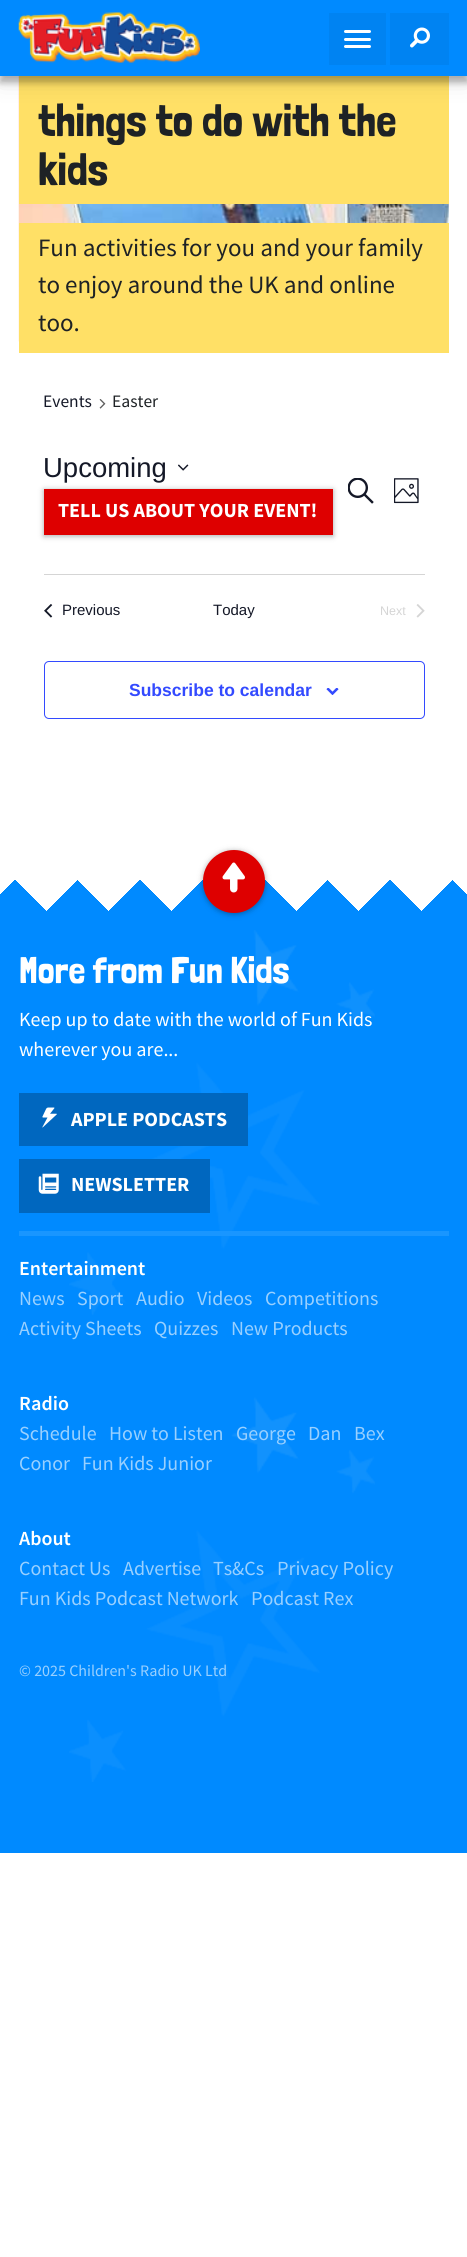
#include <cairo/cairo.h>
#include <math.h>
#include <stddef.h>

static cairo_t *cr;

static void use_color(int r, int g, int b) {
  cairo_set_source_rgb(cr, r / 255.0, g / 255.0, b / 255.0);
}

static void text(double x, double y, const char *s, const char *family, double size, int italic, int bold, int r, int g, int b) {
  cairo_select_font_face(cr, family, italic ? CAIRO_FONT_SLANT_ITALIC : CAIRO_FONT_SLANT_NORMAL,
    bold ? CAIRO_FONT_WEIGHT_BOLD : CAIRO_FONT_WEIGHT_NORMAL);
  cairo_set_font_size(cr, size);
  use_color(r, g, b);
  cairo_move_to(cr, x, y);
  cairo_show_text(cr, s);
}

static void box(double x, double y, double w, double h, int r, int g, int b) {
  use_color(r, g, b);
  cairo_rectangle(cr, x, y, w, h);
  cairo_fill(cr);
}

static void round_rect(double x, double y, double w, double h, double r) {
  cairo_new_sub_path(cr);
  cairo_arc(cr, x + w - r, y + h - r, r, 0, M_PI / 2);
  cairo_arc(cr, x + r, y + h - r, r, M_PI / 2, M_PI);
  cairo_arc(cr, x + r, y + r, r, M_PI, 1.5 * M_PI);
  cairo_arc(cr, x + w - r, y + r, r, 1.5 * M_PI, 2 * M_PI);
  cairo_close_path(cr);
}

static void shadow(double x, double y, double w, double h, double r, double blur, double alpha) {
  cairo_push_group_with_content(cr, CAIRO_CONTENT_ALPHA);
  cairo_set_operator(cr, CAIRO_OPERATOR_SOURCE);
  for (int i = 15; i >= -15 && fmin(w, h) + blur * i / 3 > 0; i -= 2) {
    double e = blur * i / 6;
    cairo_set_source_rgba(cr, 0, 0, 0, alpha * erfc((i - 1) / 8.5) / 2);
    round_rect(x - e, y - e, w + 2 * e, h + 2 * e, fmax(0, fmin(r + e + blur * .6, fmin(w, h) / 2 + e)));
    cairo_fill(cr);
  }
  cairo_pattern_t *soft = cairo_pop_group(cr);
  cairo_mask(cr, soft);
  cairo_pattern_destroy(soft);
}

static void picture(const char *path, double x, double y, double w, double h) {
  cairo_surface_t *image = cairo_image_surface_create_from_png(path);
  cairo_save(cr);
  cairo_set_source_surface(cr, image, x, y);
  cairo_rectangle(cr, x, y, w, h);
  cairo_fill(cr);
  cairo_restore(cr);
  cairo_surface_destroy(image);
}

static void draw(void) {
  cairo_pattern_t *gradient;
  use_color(255, 255, 255);
  cairo_paint(cr);
  picture("img_03.png", 18, 76, 431, 266);
  box(19, 76, 430, 128, 255, 224, 102);
  use_color(0, 0, 0);
  shadow(0, 6, 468, 77, 0, 3, 0.24);
  shadow(0, 0, 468, 76, 0, 12.5, 0.2);
  box(0, 0, 467, 76, 0, 138, 255);
  picture("img_01.png", 18, 12, 182, 51);
  box(329, 13, 57, 52, 0, 131, 242);
  use_color(255, 255, 255);
  round_rect(344, 30, 27, 3, 1.5);
  cairo_fill(cr);
  round_rect(344, 38, 27, 3, 1.5);
  cairo_fill(cr);
  round_rect(344, 45, 27, 3, 1.5);
  cairo_fill(cr);
  box(390, 13, 59, 52, 0, 131, 242);
  picture("img_02.png", 410, 27, 20, 21);
  box(19, 223, 430, 130, 255, 224, 102);
  picture("img_04.png", 99, 399, 7, 10);
  picture("img_05.png", 178, 464, 11, 7);
  use_color(0, 0, 0);
  shadow(44, 490, 289, 46, 0, 2.5, 0.24);
  shadow(44, 490, 289, 46, 0, 4, 0.12);
  box(44, 489, 289, 46, 222, 0, 0);
  picture("img_06.png", 348, 478, 26, 26);
  picture("img_07.png", 394, 478, 25, 26);
  box(44, 574, 381, 1, 213, 213, 213);
  picture("img_08.png", 44, 604, 9, 14);
  picture("img_09.png", 416, 604, 9, 14);
  round_rect(44.5, 661.5, 380, 57, 4.5);
  use_color(51, 74, 255);
  cairo_set_line_width(cr, 1);
  cairo_stroke(cr);
  picture("img_10.png", 326, 688, 13, 7);
  box(0, 911, 467, 942, 0, 138, 255);
  gradient = cairo_pattern_create_linear(109, 911, 234, 1036);
  cairo_pattern_add_color_stop_rgba(gradient, 0.25, 1, 1, 1, 1);
  cairo_pattern_add_color_stop_rgba(gradient, 0.25, 0, 0.541, 1, 1);
  cairo_set_source(cr, gradient);
  cairo_pattern_destroy(gradient);
  cairo_rectangle(cr, 172, 880, 31, 31);
  cairo_fill(cr);
  gradient = cairo_pattern_create_linear(171, 911, 296, 1036);
  cairo_pattern_add_color_stop_rgba(gradient, 0.25, 1, 1, 1, 1);
  cairo_pattern_add_color_stop_rgba(gradient, 0.25, 0, 0.541, 1, 1);
  cairo_set_source(cr, gradient);
  cairo_pattern_destroy(gradient);
  cairo_rectangle(cr, 234, 880, 31, 31);
  cairo_fill(cr);
  gradient = cairo_pattern_create_linear(296, 911, 171, 1036);
  cairo_pattern_add_color_stop_rgba(gradient, 0.25, 0, 0.541, 1, 0);
  cairo_pattern_add_color_stop_rgba(gradient, 0.25, 0, 0.541, 1, 1);
  cairo_set_source(cr, gradient);
  cairo_pattern_destroy(gradient);
  cairo_rectangle(cr, 203, 882, 20, 29);
  cairo_fill(cr);
  gradient = cairo_pattern_create_linear(359, 911, 234, 1036);
  cairo_pattern_add_color_stop_rgba(gradient, 0.25, 0, 0.541, 1, 0);
  cairo_pattern_add_color_stop_rgba(gradient, 0.25, 0, 0.541, 1, 1);
  cairo_set_source(cr, gradient);
  cairo_pattern_destroy(gradient);
  cairo_rectangle(cr, 265, 880, 31, 31);
  cairo_fill(cr);
  use_color(0, 0, 0);
  shadow(203, 851, 62, 63, 31, 2.5, 0.24);
  shadow(203, 851, 62, 63, 31, 4, 0.12);
  use_color(222, 0, 0);
  round_rect(203, 850, 62, 63, 31);
  cairo_fill(cr);
  picture("img_11.png", 222, 862, 23, 31);
  picture("img_12.png", 69, 930, 306, 852);
  gradient = cairo_pattern_create_linear(-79, 911, 46, 1036);
  cairo_pattern_add_color_stop_rgba(gradient, 0.25, 1, 1, 1, 1);
  cairo_pattern_add_color_stop_rgba(gradient, 0.25, 0, 0.541, 1, 1);
  cairo_set_source(cr, gradient);
  cairo_pattern_destroy(gradient);
  cairo_rectangle(cr, 0, 880, 15, 31);
  cairo_fill(cr);
  gradient = cairo_pattern_create_linear(-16, 911, 109, 1036);
  cairo_pattern_add_color_stop_rgba(gradient, 0.25, 1, 1, 1, 1);
  cairo_pattern_add_color_stop_rgba(gradient, 0.25, 0, 0.541, 1, 1);
  cairo_set_source(cr, gradient);
  cairo_pattern_destroy(gradient);
  cairo_rectangle(cr, 47, 880, 31, 31);
  cairo_fill(cr);
  gradient = cairo_pattern_create_linear(46, 911, 171, 1036);
  cairo_pattern_add_color_stop_rgba(gradient, 0.25, 1, 1, 1, 1);
  cairo_pattern_add_color_stop_rgba(gradient, 0.25, 0, 0.541, 1, 1);
  cairo_set_source(cr, gradient);
  cairo_pattern_destroy(gradient);
  cairo_rectangle(cr, 109, 880, 31, 31);
  cairo_fill(cr);
  gradient = cairo_pattern_create_linear(234, 911, 359, 1036);
  cairo_pattern_add_color_stop_rgba(gradient, 0.25, 1, 1, 1, 1);
  cairo_pattern_add_color_stop_rgba(gradient, 0.25, 0, 0.541, 1, 1);
  cairo_set_source(cr, gradient);
  cairo_pattern_destroy(gradient);
  cairo_rectangle(cr, 297, 880, 31, 31);
  cairo_fill(cr);
  gradient = cairo_pattern_create_linear(296, 911, 421, 1036);
  cairo_pattern_add_color_stop_rgba(gradient, 0.25, 1, 1, 1, 1);
  cairo_pattern_add_color_stop_rgba(gradient, 0.25, 0, 0.541, 1, 1);
  cairo_set_source(cr, gradient);
  cairo_pattern_destroy(gradient);
  cairo_rectangle(cr, 359, 880, 31, 31);
  cairo_fill(cr);
  gradient = cairo_pattern_create_linear(359, 911, 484, 1036);
  cairo_pattern_add_color_stop_rgba(gradient, 0.25, 1, 1, 1, 1);
  cairo_pattern_add_color_stop_rgba(gradient, 0.25, 0, 0.541, 1, 1);
  cairo_set_source(cr, gradient);
  cairo_pattern_destroy(gradient);
  cairo_rectangle(cr, 422, 880, 31, 31);
  cairo_fill(cr);
  gradient = cairo_pattern_create_linear(109, 911, -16, 1036);
  cairo_pattern_add_color_stop_rgba(gradient, 0.25, 0, 0.541, 1, 0);
  cairo_pattern_add_color_stop_rgba(gradient, 0.25, 0, 0.541, 1, 1);
  cairo_set_source(cr, gradient);
  cairo_pattern_destroy(gradient);
  cairo_rectangle(cr, 15, 880, 31, 31);
  cairo_fill(cr);
  gradient = cairo_pattern_create_linear(171, 911, 46, 1036);
  cairo_pattern_add_color_stop_rgba(gradient, 0.25, 0, 0.541, 1, 0);
  cairo_pattern_add_color_stop_rgba(gradient, 0.25, 0, 0.541, 1, 1);
  cairo_set_source(cr, gradient);
  cairo_pattern_destroy(gradient);
  cairo_rectangle(cr, 78, 881, 30, 30);
  cairo_fill(cr);
  gradient = cairo_pattern_create_linear(234, 911, 109, 1036);
  cairo_pattern_add_color_stop_rgba(gradient, 0.25, 0, 0.541, 1, 0);
  cairo_pattern_add_color_stop_rgba(gradient, 0.25, 0, 0.541, 1, 1);
  cairo_set_source(cr, gradient);
  cairo_pattern_destroy(gradient);
  cairo_rectangle(cr, 140, 880, 31, 31);
  cairo_fill(cr);
  gradient = cairo_pattern_create_linear(421, 911, 296, 1036);
  cairo_pattern_add_color_stop_rgba(gradient, 0.25, 0, 0.541, 1, 0);
  cairo_pattern_add_color_stop_rgba(gradient, 0.25, 0, 0.541, 1, 1);
  cairo_set_source(cr, gradient);
  cairo_pattern_destroy(gradient);
  cairo_rectangle(cr, 328, 881, 30, 30);
  cairo_fill(cr);
  gradient = cairo_pattern_create_linear(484, 911, 359, 1036);
  cairo_pattern_add_color_stop_rgba(gradient, 0.25, 0, 0.541, 1, 0);
  cairo_pattern_add_color_stop_rgba(gradient, 0.25, 0, 0.541, 1, 1);
  cairo_set_source(cr, gradient);
  cairo_pattern_destroy(gradient);
  cairo_rectangle(cr, 390, 880, 31, 31);
  cairo_fill(cr);
  gradient = cairo_pattern_create_linear(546, 911, 421, 1036);
  cairo_pattern_add_color_stop_rgba(gradient, 0.25, 0, 0.541, 1, 0);
  cairo_pattern_add_color_stop_rgba(gradient, 0.25, 0, 0.541, 1, 1);
  cairo_set_source(cr, gradient);
  cairo_pattern_destroy(gradient);
  cairo_rectangle(cr, 453, 881, 14, 30);
  cairo_fill(cr);
  box(19, 1231, 430, 5, 25, 150, 255);
  box(19, 1093, 229, 53, 0, 103, 191);
  picture("img_13.png", 42, 1107, 15, 21);
  box(19, 1159, 191, 54, 0, 103, 191);
  picture("img_14.png", 38, 1173, 21, 21);
  text(38, 136, "things to do with the", "Londrina Solid", 45, 0, 0, 30, 34, 37);
  text(38, 185, "kids", "Londrina Solid", 45, 0, 0, 30, 34, 37);
  text(38, 256, "Fun activities for you and your family", "Source Sans Pro", 25, 0, 0, 30, 34, 37);
  text(38, 293, "to enjoy around the UK and online", "Source Sans Pro", 25, 0, 0, 30, 34, 37);
  text(38, 331, "too.", "Source Sans Pro", 25, 0, 0, 30, 34, 37);
  text(43, 407, "Events", "Source Sans Pro", 17.5, 0, 0, 20, 24, 39);
  text(112, 407, "Easter", "Source Sans Pro", 17.5, 0, 0, 30, 34, 37);
  text(43, 477, "Upcoming", "Liberation Sans", 27.5, 0, 0, 20, 24, 39);
  text(58, 517, "TELL US ABOUT YOUR EVENT!", "Source Sans Pro", 20, 0, 1, 255, 255, 255);
  text(62, 615, "Previous", "Liberation Sans", 15, 0, 0, 20, 24, 39);
  text(213, 615, "Today", "Liberation Sans", 15, 0, 0, 20, 24, 39);
  text(380, 615, "Next", "Liberation Sans", 12.5, 0, 0, 213, 213, 213);
  text(129, 696, "Subscribe to calendar", "Liberation Sans", 17.5, 0, 1, 51, 74, 255);
  text(19, 983, "More from Fun Kids", "Londrina Solid", 37.5, 0, 0, 255, 255, 255);
  text(19, 1026, "Keep up to date with the world of Fun Kids", "Source Sans Pro", 20, 0, 0, 255, 255, 255);
  text(19, 1056, "wherever you are...", "Source Sans Pro", 20, 0, 0, 255, 255, 255);
  text(71, 1126, "APPLE PODCASTS", "Source Sans Pro", 20, 0, 1, 255, 255, 255);
  text(71, 1191, "NEWSLETTER", "Source Sans Pro", 20, 0, 1, 255, 255, 255);
  text(19, 1275, "Entertainment", "Source Sans Pro SemiBold", 20, 0, 0, 255, 255, 255);
  text(19, 1305, "News", "Source Sans Pro", 20, 0, 0, 153, 208, 255);
  text(77, 1305, "Sport", "Source Sans Pro", 20, 0, 0, 153, 208, 255);
  text(136, 1305, "Audio", "Source Sans Pro", 20, 0, 0, 153, 208, 255);
  text(197, 1305, "Videos", "Source Sans Pro", 20, 0, 0, 153, 208, 255);
  text(265, 1305, "Competitions", "Source Sans Pro", 20, 0, 0, 153, 208, 255);
  text(19, 1335, "Activity Sheets", "Source Sans Pro", 20, 0, 0, 153, 208, 255);
  text(154, 1335, "Quizzes", "Source Sans Pro", 20, 0, 0, 153, 208, 255);
  text(231, 1335, "New Products", "Source Sans Pro", 20, 0, 0, 153, 208, 255);
  text(19, 1410, "Radio", "Source Sans Pro SemiBold", 20, 0, 0, 255, 255, 255);
  text(19, 1440, "Schedule", "Source Sans Pro", 20, 0, 0, 153, 208, 255);
  text(109, 1440, "How to Listen", "Source Sans Pro", 20, 0, 0, 153, 208, 255);
  text(236, 1440, "George", "Source Sans Pro", 20, 0, 0, 153, 208, 255);
  text(308, 1440, "Dan", "Source Sans Pro", 20, 0, 0, 153, 208, 255);
  text(354, 1440, "Bex", "Source Sans Pro", 20, 0, 0, 153, 208, 255);
  text(19, 1470, "Conor", "Source Sans Pro", 20, 0, 0, 153, 208, 255);
  text(82, 1470, "Fun Kids Junior", "Source Sans Pro", 20, 0, 0, 153, 208, 255);
  text(19, 1545, "About", "Source Sans Pro SemiBold", 20, 0, 0, 255, 255, 255);
  text(19, 1575, "Contact Us", "Source Sans Pro", 20, 0, 0, 153, 208, 255);
  text(123, 1575, "Advertise", "Source Sans Pro", 20, 0, 0, 153, 208, 255);
  text(213, 1575, "Ts&Cs", "Source Sans Pro", 20, 0, 0, 153, 208, 255);
  text(277, 1575, "Privacy Policy", "Source Sans Pro", 20, 0, 0, 153, 208, 255);
  text(19, 1605, "Fun Kids Podcast Network", "Source Sans Pro", 20, 0, 0, 153, 208, 255);
  text(251, 1605, "Podcast Rex", "Source Sans Pro", 20, 0, 0, 153, 208, 255);
  text(19, 1676, "© 2025 Children's Radio UK Ltd", "Source Sans Pro", 16, 0, 0, 153, 208, 255);
}

int main(void) {
  cairo_surface_t *surface = cairo_image_surface_create(CAIRO_FORMAT_RGB24, 467, 2257);
  cr = cairo_create(surface);
  cairo_font_options_t *options = cairo_font_options_create();
  cairo_font_options_set_hint_metrics(options, CAIRO_HINT_METRICS_OFF);
  cairo_font_options_set_hint_style(options, CAIRO_HINT_STYLE_NONE);
  cairo_set_font_options(cr, options);
  cairo_set_miter_limit(cr, 4);
  draw();
  cairo_surface_write_to_png(surface, "out.png");
  cairo_font_options_destroy(options);
  cairo_destroy(cr);
  cairo_surface_destroy(surface);
  return 0;
}
